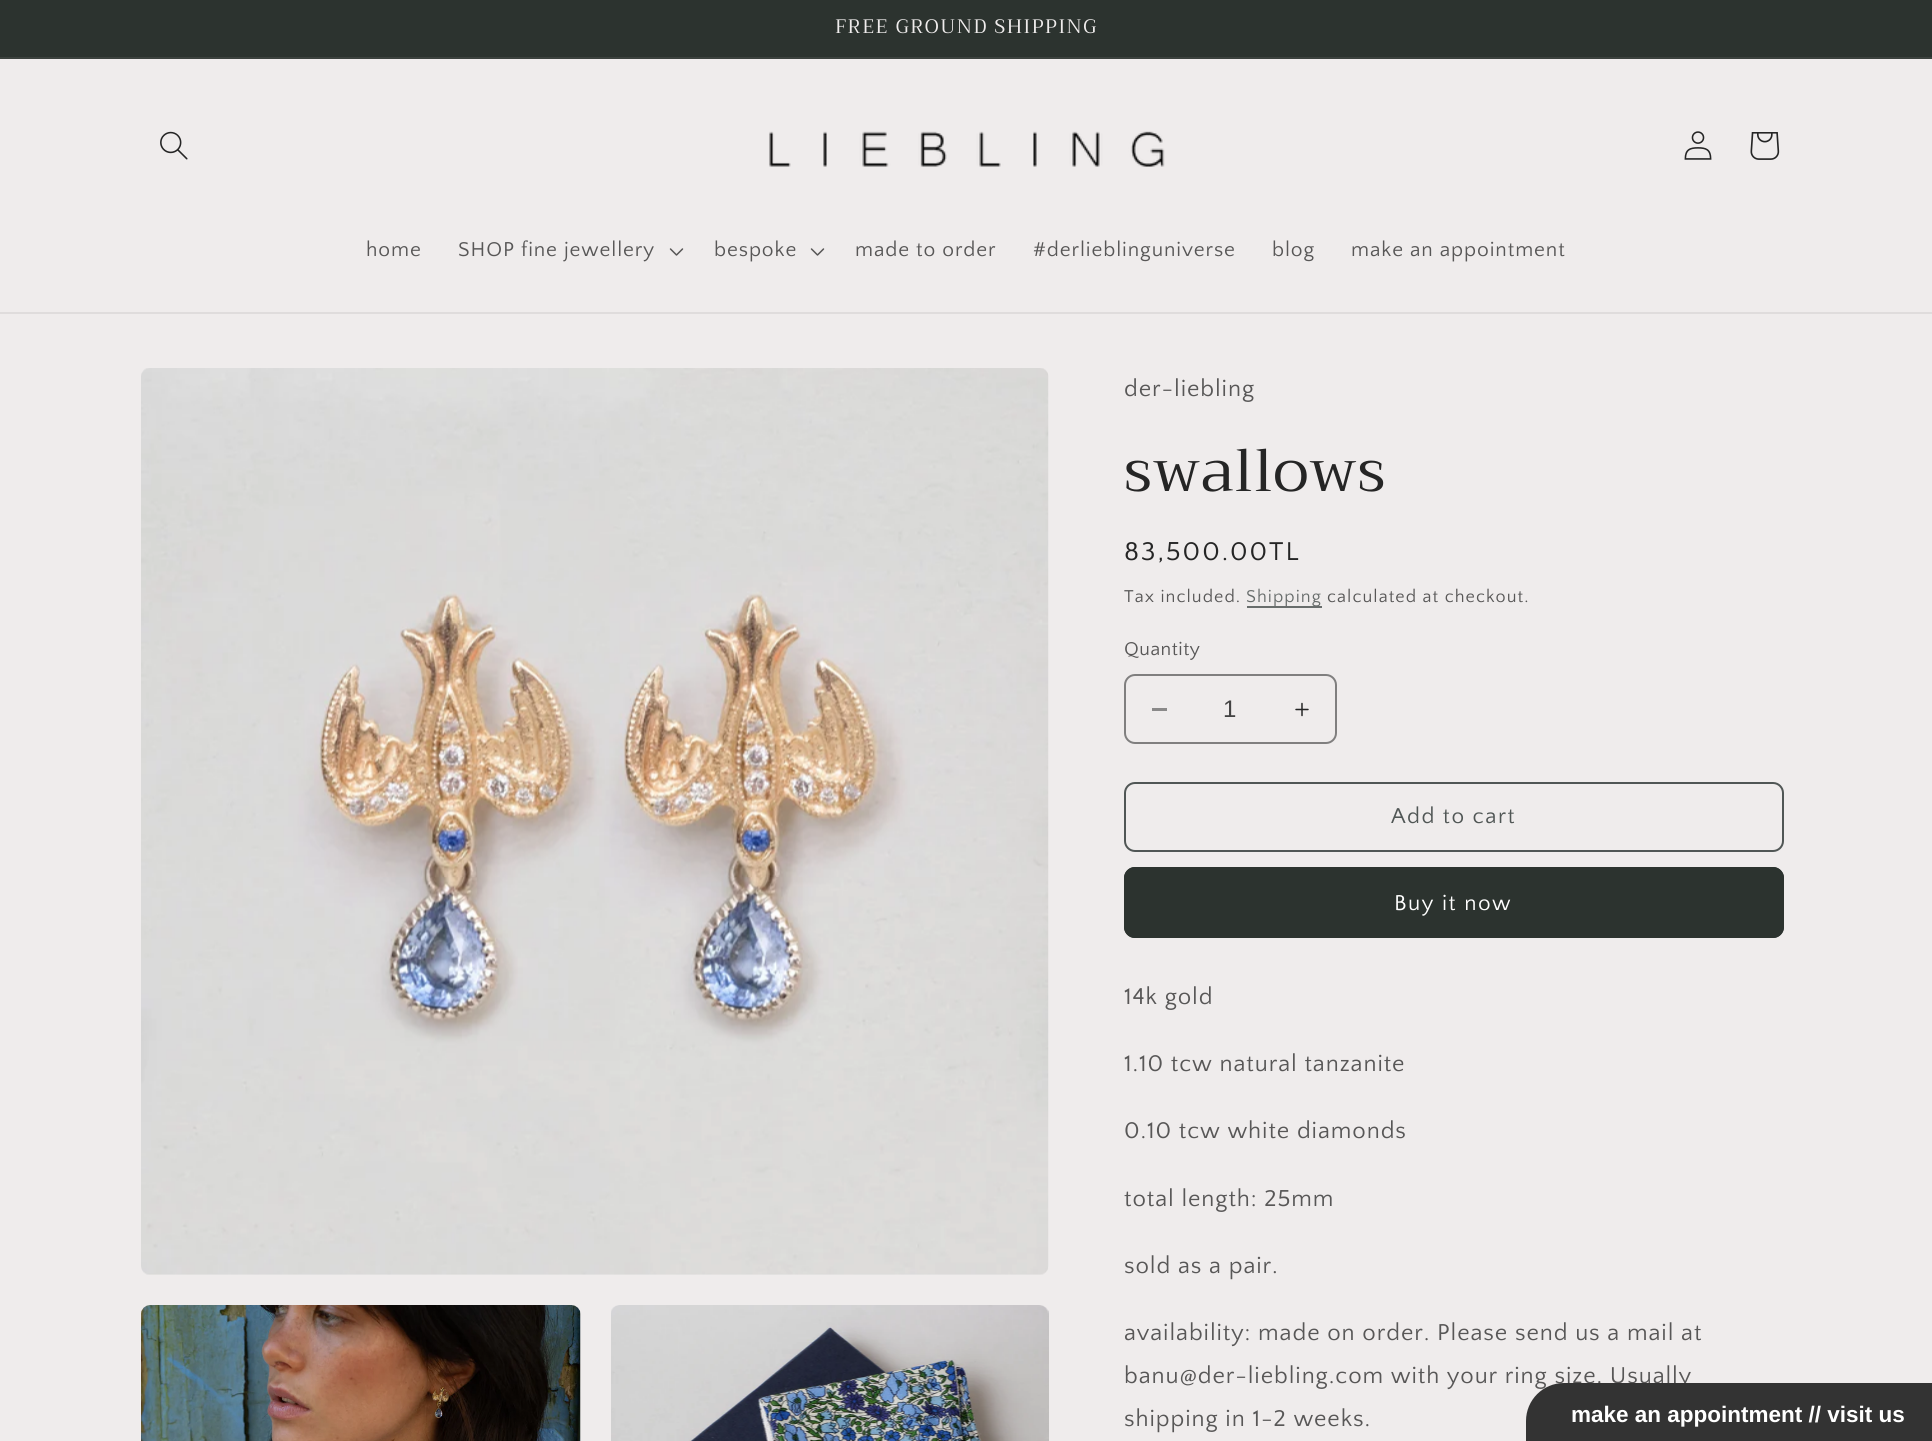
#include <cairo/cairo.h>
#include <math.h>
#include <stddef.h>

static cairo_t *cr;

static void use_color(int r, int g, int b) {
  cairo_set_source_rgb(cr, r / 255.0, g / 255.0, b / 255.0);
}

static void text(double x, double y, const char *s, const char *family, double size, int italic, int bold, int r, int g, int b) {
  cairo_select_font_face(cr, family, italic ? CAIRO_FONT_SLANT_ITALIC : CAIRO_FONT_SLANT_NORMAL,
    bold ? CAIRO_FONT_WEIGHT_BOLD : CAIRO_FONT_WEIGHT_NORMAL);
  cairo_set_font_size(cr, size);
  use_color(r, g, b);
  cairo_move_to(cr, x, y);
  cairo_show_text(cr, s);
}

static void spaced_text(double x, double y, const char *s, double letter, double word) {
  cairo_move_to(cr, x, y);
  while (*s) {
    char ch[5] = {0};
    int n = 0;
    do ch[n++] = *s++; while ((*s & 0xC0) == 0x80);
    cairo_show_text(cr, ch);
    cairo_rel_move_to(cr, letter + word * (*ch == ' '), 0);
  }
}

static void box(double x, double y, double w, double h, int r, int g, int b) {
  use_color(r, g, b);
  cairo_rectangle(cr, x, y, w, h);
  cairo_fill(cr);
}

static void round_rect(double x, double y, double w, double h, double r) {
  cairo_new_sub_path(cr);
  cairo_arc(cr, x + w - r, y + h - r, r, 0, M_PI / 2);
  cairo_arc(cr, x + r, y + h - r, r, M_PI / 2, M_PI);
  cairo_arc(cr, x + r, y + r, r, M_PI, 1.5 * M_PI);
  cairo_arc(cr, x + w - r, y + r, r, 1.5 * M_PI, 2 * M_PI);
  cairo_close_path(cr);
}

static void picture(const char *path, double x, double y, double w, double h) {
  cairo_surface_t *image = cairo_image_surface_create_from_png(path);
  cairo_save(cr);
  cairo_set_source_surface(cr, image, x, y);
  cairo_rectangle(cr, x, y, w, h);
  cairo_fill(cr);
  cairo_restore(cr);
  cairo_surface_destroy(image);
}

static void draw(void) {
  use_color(239, 236, 236);
  cairo_paint(cr);
  box(0, 0, 1932, 57, 44, 51, 47);
  box(0, 57, 1932, 2, 60, 66, 62);
  box(0, 312, 1932, 2, 223, 220, 220);
  picture("img_01.png", 160, 131, 28, 29);
  picture("img_02.png", 769, 131, 396, 36);
  picture("img_03.png", 1684, 131, 28, 29);
  picture("img_04.png", 1750, 132, 30, 28);
  picture("img_05.png", 669, 248, 15, 8);
  picture("img_05.png", 810, 248, 15, 8);
  picture("img_06.png", 141, 368, 908, 907);
  picture("img_07.png", 141, 1305, 440, 136);
  picture("img_08.png", 611, 1305, 438, 136);
  box(1247, 606, 75, 2, 104, 109, 108);
  box(1152, 708, 15, 3, 138, 137, 137);
  picture("img_09.png", 1295, 702, 14, 15);
  round_rect(1125, 675, 211, 68, 10);
  use_color(128, 127, 127);
  cairo_stroke(cr);
  round_rect(1125, 783, 658, 68, 10);
  use_color(80, 86, 85);
  cairo_stroke(cr);
  use_color(44, 51, 47);
  round_rect(1124, 867, 660, 71, 11);
  cairo_fill(cr);
  round_rect(1125, 868, 658, 69, 10);
  cairo_stroke(cr);
  cairo_select_font_face(cr, "Trirong", CAIRO_FONT_SLANT_NORMAL, CAIRO_FONT_WEIGHT_NORMAL);
  cairo_set_font_size(cr, 19.5);
  use_color(239, 236, 236);
  spaced_text(835, 33, "FREE GROUND SHIPPING", 1.5, 0);
  cairo_select_font_face(cr, "Quattrocento Sans", CAIRO_FONT_SLANT_NORMAL, CAIRO_FONT_WEIGHT_NORMAL);
  cairo_set_font_size(cr, 21);
  use_color(88, 87, 87);
  spaced_text(366, 256, "home", 0.9, 0);
  spaced_text(458, 256, "SHOP fine jewellery", 0.9, 0);
  spaced_text(714, 256, "bespoke", 0.9, 0);
  spaced_text(855, 256, "made to order", 0.9, 0);
  spaced_text(1033, 256, "#derlieblinguniverse", 0.9, 0);
  spaced_text(1272, 256, "blog", 0.9, 0);
  spaced_text(1351, 256, "make an appointment", 0.9, 0);
  cairo_set_font_size(cr, 24);
  spaced_text(1124, 396, "der-liebling", 0.9, 0);
  cairo_select_font_face(cr, "Trirong", CAIRO_FONT_SLANT_NORMAL, CAIRO_FONT_WEIGHT_NORMAL);
  cairo_set_font_size(cr, 60);
  use_color(37, 37, 37);
  spaced_text(1124, 491, "swallows", 0.9, 0);
  cairo_select_font_face(cr, "Quattrocento Sans", CAIRO_FONT_SLANT_NORMAL, CAIRO_FONT_WEIGHT_NORMAL);
  cairo_set_font_size(cr, 27);
  spaced_text(1124, 560, "83,500.00TL", 2, 0);
  cairo_set_font_size(cr, 18);
  use_color(88, 87, 87);
  spaced_text(1124, 602, "Tax included.", 1.05, 0);
  use_color(103, 108, 107);
  spaced_text(1246, 602, "Shipping", 1.05, 0);
  use_color(88, 87, 87);
  spaced_text(1327, 602, "calculated at checkout.", 1.05, 0);
  cairo_set_font_size(cr, 19.5);
  spaced_text(1124, 655, "Quantity", 0.5, 0);
  text(1223, 717, "1", "Liberation Sans", 24, 0, 0, 67, 67, 67);
  cairo_select_font_face(cr, "Quattrocento Sans", CAIRO_FONT_SLANT_NORMAL, CAIRO_FONT_WEIGHT_NORMAL);
  cairo_set_font_size(cr, 22.5);
  use_color(80, 86, 85);
  spaced_text(1391, 823, "Add to cart", 1.5, 0);
  use_color(255, 255, 255);
  spaced_text(1394, 910, "Buy it now", 1.5, 0);
  cairo_set_font_size(cr, 24);
  use_color(88, 87, 87);
  spaced_text(1124, 1004, "14k gold", 0.9, 0);
  spaced_text(1124, 1071, "1.10 tcw natural tanzanite", 0.9, 0);
  spaced_text(1124, 1138, "0.10 tcw white diamonds", 0.9, 0);
  spaced_text(1124, 1206, "total length: 25mm", 0.9, 0);
  spaced_text(1124, 1273, "sold as a pair.", 0.9, 0);
  spaced_text(1124, 1340, "availability: made on order. Please send us a mail at", 0.9, 0);
  spaced_text(1124, 1383, "banu@der-liebling.com with your ring size. Usually", 0.9, 0);
  spaced_text(1124, 1426, "shipping in 1-2 weeks.", 0.9, 0);
  use_color(51, 51, 51);
  cairo_new_path(cr);
  cairo_move_to(cr, 1564, 1383);
  cairo_line_to(cr, 1932, 1383);
  cairo_line_to(cr, 1932, 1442);
  cairo_line_to(cr, 1526, 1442);
  cairo_line_to(cr, 1526, 1421);
  cairo_curve_to(cr, 1526, 1400, 1543, 1383, 1564, 1383);
  cairo_close_path(cr);
  cairo_fill(cr);
  text(1571, 1422, "make an appointment // visit us", "Liberation Sans", 22.5, 0, 1, 255, 255, 255);
}

int main(void) {
  cairo_surface_t *surface = cairo_image_surface_create(CAIRO_FORMAT_RGB24, 1932, 1441);
  cr = cairo_create(surface);
  cairo_font_options_t *options = cairo_font_options_create();
  cairo_font_options_set_hint_metrics(options, CAIRO_HINT_METRICS_OFF);
  cairo_font_options_set_hint_style(options, CAIRO_HINT_STYLE_NONE);
  cairo_set_font_options(cr, options);
  cairo_set_miter_limit(cr, 4);
  draw();
  cairo_surface_write_to_png(surface, "out.png");
  cairo_font_options_destroy(options);
  cairo_destroy(cr);
  cairo_surface_destroy(surface);
  return 0;
}
